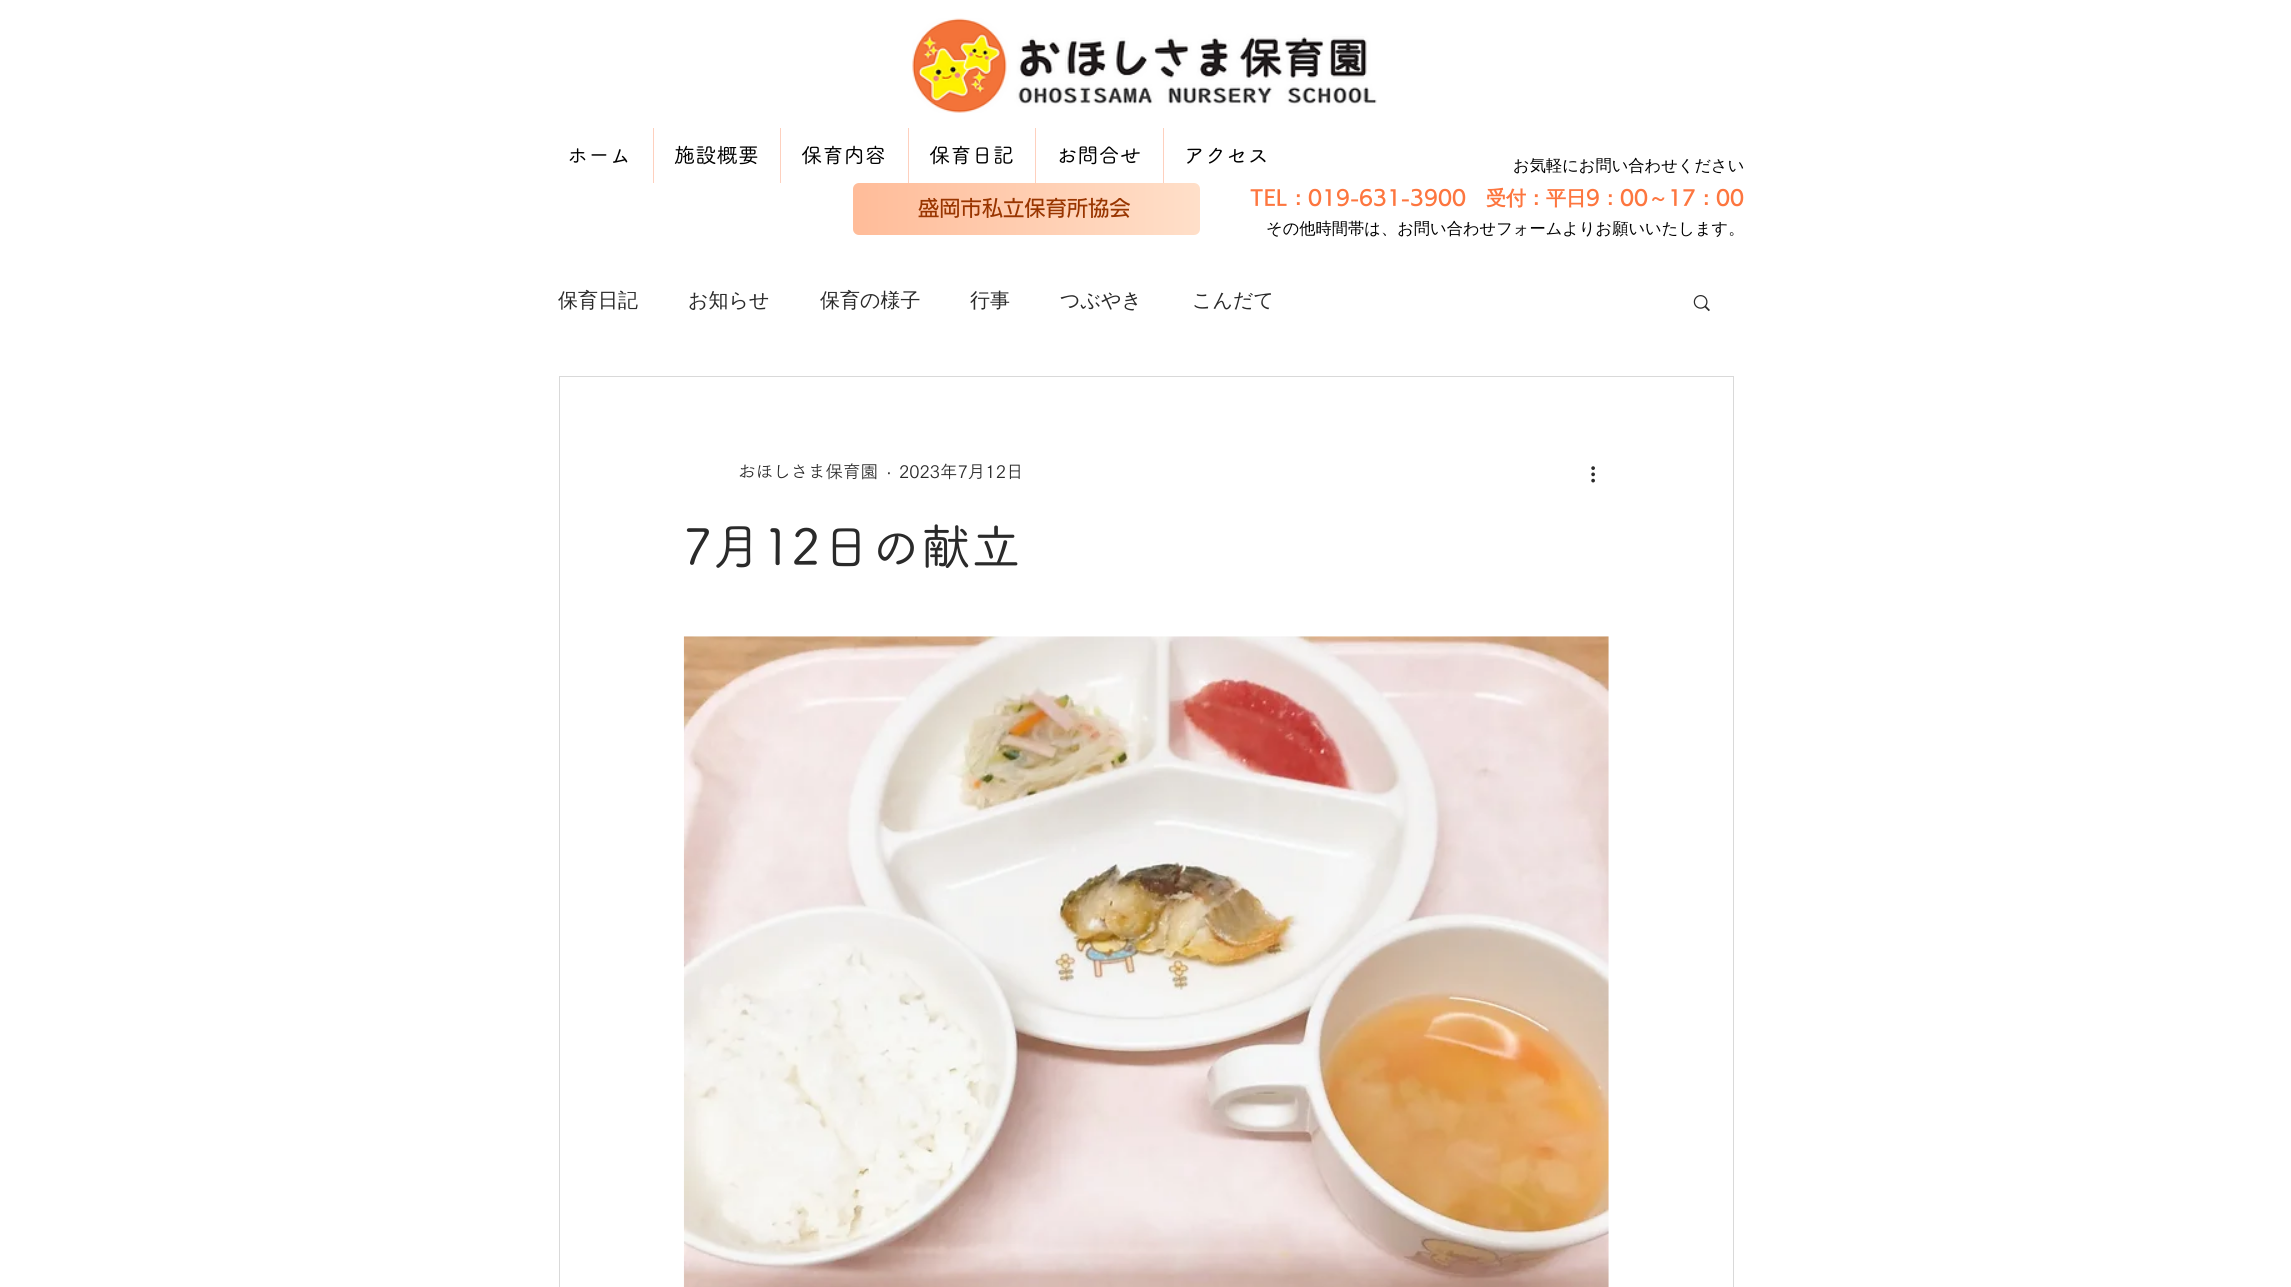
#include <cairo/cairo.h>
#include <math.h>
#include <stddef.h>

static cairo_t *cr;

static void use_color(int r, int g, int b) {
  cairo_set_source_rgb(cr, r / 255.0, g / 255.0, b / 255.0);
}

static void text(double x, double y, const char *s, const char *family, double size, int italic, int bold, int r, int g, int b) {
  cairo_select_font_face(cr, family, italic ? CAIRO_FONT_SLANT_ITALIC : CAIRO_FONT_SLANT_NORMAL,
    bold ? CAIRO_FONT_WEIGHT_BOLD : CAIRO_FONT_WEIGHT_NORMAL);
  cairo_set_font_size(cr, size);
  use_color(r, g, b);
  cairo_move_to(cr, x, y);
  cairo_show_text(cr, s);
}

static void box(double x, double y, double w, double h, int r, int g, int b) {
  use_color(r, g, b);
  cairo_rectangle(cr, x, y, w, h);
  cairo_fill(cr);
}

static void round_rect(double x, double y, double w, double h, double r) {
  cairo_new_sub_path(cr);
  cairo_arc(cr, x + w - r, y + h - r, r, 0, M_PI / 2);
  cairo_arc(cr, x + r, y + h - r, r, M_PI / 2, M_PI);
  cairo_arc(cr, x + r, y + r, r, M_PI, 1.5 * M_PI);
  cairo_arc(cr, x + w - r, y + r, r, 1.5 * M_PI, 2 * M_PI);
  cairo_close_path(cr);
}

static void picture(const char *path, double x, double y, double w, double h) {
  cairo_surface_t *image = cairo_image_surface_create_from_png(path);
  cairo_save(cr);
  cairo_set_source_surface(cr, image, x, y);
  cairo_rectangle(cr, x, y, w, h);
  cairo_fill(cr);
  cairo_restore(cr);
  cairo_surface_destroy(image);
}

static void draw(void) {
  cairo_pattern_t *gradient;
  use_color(255, 255, 255);
  cairo_paint(cr);
  picture("img_01.png", 912, 18, 465, 95);
  box(653, 128, 1, 55, 254, 208, 190);
  box(780, 128, 1, 55, 254, 208, 190);
  box(908, 128, 1, 55, 254, 208, 190);
  box(1035, 128, 1, 55, 254, 208, 190);
  box(1163, 128, 1, 55, 254, 208, 190);
  gradient = cairo_pattern_create_linear(853, 209, 1200, 209);
  cairo_pattern_add_color_stop_rgba(gradient, 0, 1, 0.737, 0.6, 1);
  cairo_pattern_add_color_stop_rgba(gradient, 1, 1, 0.875, 0.788, 1);
  cairo_set_source(cr, gradient);
  cairo_pattern_destroy(gradient);
  round_rect(853, 183, 347, 52, 6);
  cairo_fill(cr);
  picture("img_02.png", 1693, 295, 17, 17);
  cairo_rectangle(cr, 559.5, 376.5, 1174, 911);
  use_color(217, 217, 217);
  cairo_set_line_width(cr, 1);
  cairo_stroke(cr);
  picture("img_03.png", 1591, 466, 4, 17);
  picture("img_04.png", 683, 636, 926, 651);
  text(567, 163, "ホーム", "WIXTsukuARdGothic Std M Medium", 21.25, 0, 0, 0, 0, 0);
  text(674, 163, "施設概要", "WIXTsukuARdGothic Std M Medium", 21.25, 0, 0, 0, 0, 0);
  text(801, 163, "保育内容", "WIXTsukuARdGothic Std M Medium", 21.25, 0, 0, 0, 0, 0);
  text(929, 163, "保育日記", "WIXTsukuARdGothic Std M Medium", 21.25, 0, 0, 0, 0, 0);
  text(1056, 163, "お問合せ", "WIXTsukuARdGothic Std M Medium", 21.25, 0, 0, 0, 0, 0);
  text(1184, 163, "アクセス", "WIXTsukuARdGothic Std M Medium", 21.25, 0, 0, 0, 0, 0);
  text(918, 216, "盛岡市私立保育所協会", "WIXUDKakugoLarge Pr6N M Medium", 21.25, 0, 0, 153, 53, 0);
  text(1513, 171, "お気軽にお問い合わせください", "WenQuanYi Zen Hei Medium", 16.25, 0, 0, 0, 0, 0);
  text(1250, 205, "TEL", "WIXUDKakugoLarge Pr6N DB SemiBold", 20, 0, 0, 253, 118, 63);
  text(1288, 205, "：", "WenQuanYi Zen Hei", 20, 0, 1, 253, 118, 63);
  text(1308, 205, "019-631-3900", "WIXUDKakugoLarge Pr6N DB SemiBold", 20, 0, 0, 253, 118, 63);
  text(1486, 205, "受付：平日", "WenQuanYi Zen Hei", 20, 0, 1, 253, 118, 63);
  text(1586, 205, "9", "WIXUDKakugoLarge Pr6N DB SemiBold", 20, 0, 0, 253, 118, 63);
  text(1600, 205, "：", "WenQuanYi Zen Hei", 20, 0, 1, 253, 118, 63);
  text(1620, 205, "00", "WIXUDKakugoLarge Pr6N DB SemiBold", 20, 0, 0, 253, 118, 63);
  text(1648, 205, "～", "WenQuanYi Zen Hei", 20, 0, 1, 253, 118, 63);
  text(1668, 205, "17", "WIXUDKakugoLarge Pr6N DB SemiBold", 20, 0, 0, 253, 118, 63);
  text(1696, 205, "：", "WenQuanYi Zen Hei", 20, 0, 1, 253, 118, 63);
  text(1716, 205, "00", "WIXUDKakugoLarge Pr6N DB SemiBold", 20, 0, 0, 253, 118, 63);
  text(1266, 234, "その他時間帯は、お問い合わせフォームよりお願いいたします。", "WenQuanYi Zen Hei Medium", 16.25, 0, 0, 0, 0, 0);
  text(558, 307, "保育日記", "WenQuanYi Zen Hei Medium", 20, 0, 0, 42, 42, 42);
  text(688, 307, "お知らせ", "WenQuanYi Zen Hei Medium", 20, 0, 0, 42, 42, 42);
  text(820, 307, "保育の様子", "WenQuanYi Zen Hei Medium", 20, 0, 0, 42, 42, 42);
  text(970, 307, "行事", "WenQuanYi Zen Hei Medium", 20, 0, 0, 42, 42, 42);
  text(1060, 307, "つぶやき", "WenQuanYi Zen Hei Medium", 20, 0, 0, 42, 42, 42);
  text(1192, 307, "こんだて", "WenQuanYi Zen Hei Medium", 20, 0, 0, 42, 42, 42);
  text(738, 478, "おほしさま保育園", "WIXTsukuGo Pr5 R", 17.5, 0, 0, 42, 42, 42);
  text(886, 478, "·", "Liberation Sans", 17.5, 0, 0, 42, 42, 42);
  text(899, 478, "2023年7月12日", "WIXTsukuGo Pr5 R", 17.5, 0, 0, 42, 42, 42);
  text(683, 565, "7月12日の献立", "WIXTsukuARdGothic Std M Medium", 50, 0, 0, 42, 42, 42);
}

int main(void) {
  cairo_surface_t *surface = cairo_image_surface_create(CAIRO_FORMAT_RGB24, 2291, 1287);
  cr = cairo_create(surface);
  cairo_font_options_t *options = cairo_font_options_create();
  cairo_font_options_set_hint_metrics(options, CAIRO_HINT_METRICS_OFF);
  cairo_font_options_set_hint_style(options, CAIRO_HINT_STYLE_NONE);
  cairo_set_font_options(cr, options);
  cairo_set_miter_limit(cr, 4);
  draw();
  cairo_surface_write_to_png(surface, "out.png");
  cairo_font_options_destroy(options);
  cairo_destroy(cr);
  cairo_surface_destroy(surface);
  return 0;
}
